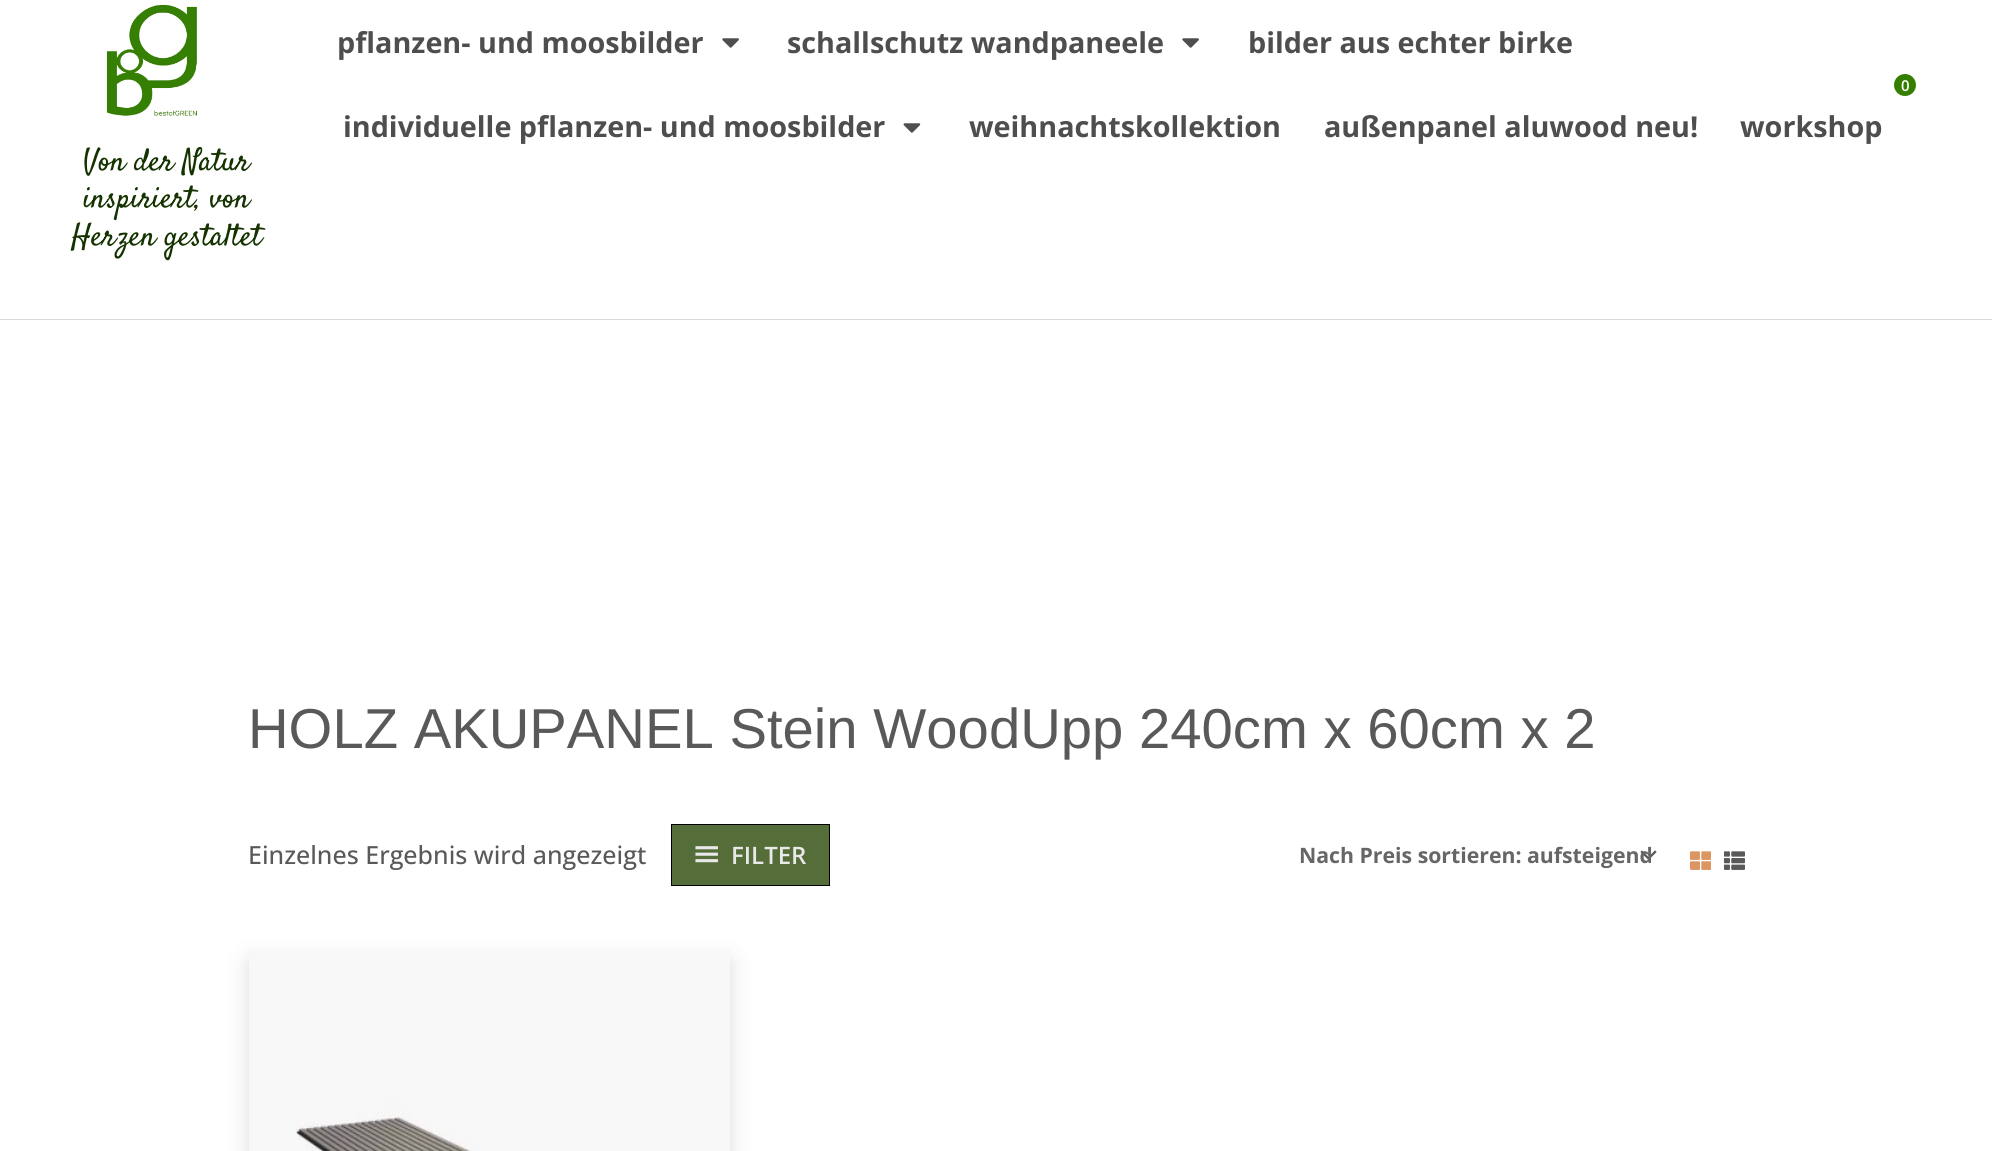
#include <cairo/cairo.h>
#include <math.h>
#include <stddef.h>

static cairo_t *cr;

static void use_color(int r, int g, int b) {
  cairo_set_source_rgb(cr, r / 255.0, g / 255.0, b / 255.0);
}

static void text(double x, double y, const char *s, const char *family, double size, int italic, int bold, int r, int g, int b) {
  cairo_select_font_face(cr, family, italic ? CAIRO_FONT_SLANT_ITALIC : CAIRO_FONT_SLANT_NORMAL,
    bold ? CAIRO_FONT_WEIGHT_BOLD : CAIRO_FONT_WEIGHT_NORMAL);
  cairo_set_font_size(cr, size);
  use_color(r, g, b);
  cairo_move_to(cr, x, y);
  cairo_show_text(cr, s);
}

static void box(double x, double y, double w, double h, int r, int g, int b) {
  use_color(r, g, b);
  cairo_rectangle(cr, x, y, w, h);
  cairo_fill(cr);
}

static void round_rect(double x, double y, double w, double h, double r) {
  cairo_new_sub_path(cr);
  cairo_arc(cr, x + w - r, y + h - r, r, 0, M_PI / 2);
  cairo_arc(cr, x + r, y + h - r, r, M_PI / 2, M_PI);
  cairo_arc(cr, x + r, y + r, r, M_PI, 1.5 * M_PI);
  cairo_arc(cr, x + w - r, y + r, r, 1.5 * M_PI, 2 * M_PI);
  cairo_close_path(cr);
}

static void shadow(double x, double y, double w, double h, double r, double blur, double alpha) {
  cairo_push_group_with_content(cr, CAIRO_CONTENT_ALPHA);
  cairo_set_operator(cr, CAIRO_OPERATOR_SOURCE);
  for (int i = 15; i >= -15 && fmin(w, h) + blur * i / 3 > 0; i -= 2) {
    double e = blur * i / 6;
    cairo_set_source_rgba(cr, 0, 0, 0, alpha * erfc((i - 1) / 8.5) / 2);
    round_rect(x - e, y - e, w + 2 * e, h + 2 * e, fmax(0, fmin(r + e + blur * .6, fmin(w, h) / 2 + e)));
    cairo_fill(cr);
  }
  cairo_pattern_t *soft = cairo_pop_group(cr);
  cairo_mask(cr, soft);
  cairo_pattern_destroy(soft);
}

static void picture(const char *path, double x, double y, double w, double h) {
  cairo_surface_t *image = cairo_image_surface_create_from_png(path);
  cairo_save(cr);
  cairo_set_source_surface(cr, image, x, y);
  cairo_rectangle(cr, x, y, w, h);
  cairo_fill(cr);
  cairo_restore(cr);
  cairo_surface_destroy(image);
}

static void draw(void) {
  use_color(255, 255, 255);
  cairo_paint(cr);
  box(0, 319, 1992, 1, 216, 216, 216);
  picture("img_01.png", 722, 38, 17, 10);
  picture("img_01.png", 1182, 38, 17, 10);
  picture("img_02.png", 903, 123, 18, 10);
  picture("img_03.png", 106, 4, 91, 112);
  use_color(52, 127, 0);
  cairo_arc(cr, 1905, 85, 11, 0, 2 * M_PI);
  cairo_fill(cr);
  use_color(84, 109, 57);
  cairo_rectangle(cr, 671.5, 824.5, 158, 61);
  cairo_fill_preserve(cr);
  use_color(0, 0, 0);
  cairo_set_line_width(cr, 1);
  cairo_stroke(cr);
  picture("img_04.png", 695, 846, 23, 17);
  picture("img_05.png", 1640, 850, 17, 10);
  picture("img_06.png", 1690, 851, 21, 19);
  picture("img_07.png", 1724, 851, 21, 19);
  use_color(220, 223, 218);
  shadow(249, 961, 481, 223, 0, 11, 1);
  picture("img_08.png", 249, 949, 481, 202);
  text(337, 53, "pflanzen- und moosbilder", "Open Sans", 28.75, 0, 1, 78, 78, 78);
  text(787, 53, "schallschutz wandpaneele", "Open Sans", 28.75, 0, 1, 78, 78, 78);
  text(1248, 53, "bilder aus echter birke", "Open Sans", 28.75, 0, 1, 78, 78, 78);
  text(343, 137, "individuelle pflanzen- und moosbilder", "Open Sans", 28.75, 0, 1, 78, 78, 78);
  text(969, 137, "weihnachtskollektion", "Open Sans", 28.75, 0, 1, 78, 78, 78);
  text(1324, 137, "außenpanel aluwood neu!", "Open Sans", 28.75, 0, 1, 78, 78, 78);
  text(1740, 137, "workshop", "Open Sans", 28.75, 0, 1, 78, 78, 78);
  text(83, 170, "Von der Natur", "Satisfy", 31.25, 0, 0, 21, 51, 0);
  text(83, 207, "inspiriert, von", "Satisfy", 31.25, 0, 0, 21, 51, 0);
  text(71, 245, "Herzen gestaltet", "Satisfy", 31.25, 0, 0, 21, 51, 0);
  text(1901, 91, "0", "Open Sans SemiBold", 15, 0, 0, 255, 255, 255);
  text(248, 748, "HOLZ AKUPANEL Stein WoodUpp 240cm x 60cm x 2", "Liberation Sans", 56.25, 0, 0, 89, 89, 89);
  text(248, 864, "Einzelnes Ergebnis wird angezeigt", "Open Sans Medium", 25, 0, 0, 89, 89, 89);
  text(731, 864, "FILTER", "Open Sans SemiBold", 24, 0, 0, 233, 233, 233);
  text(1299, 863, "Nach Preis sortieren: aufsteigend", "Open Sans", 21.25, 0, 1, 102, 102, 102);
}

int main(void) {
  cairo_surface_t *surface = cairo_image_surface_create(CAIRO_FORMAT_RGB24, 1992, 1151);
  cr = cairo_create(surface);
  cairo_font_options_t *options = cairo_font_options_create();
  cairo_font_options_set_hint_metrics(options, CAIRO_HINT_METRICS_OFF);
  cairo_font_options_set_hint_style(options, CAIRO_HINT_STYLE_NONE);
  cairo_set_font_options(cr, options);
  cairo_set_miter_limit(cr, 4);
  draw();
  cairo_surface_write_to_png(surface, "out.png");
  cairo_font_options_destroy(options);
  cairo_destroy(cr);
  cairo_surface_destroy(surface);
  return 0;
}
